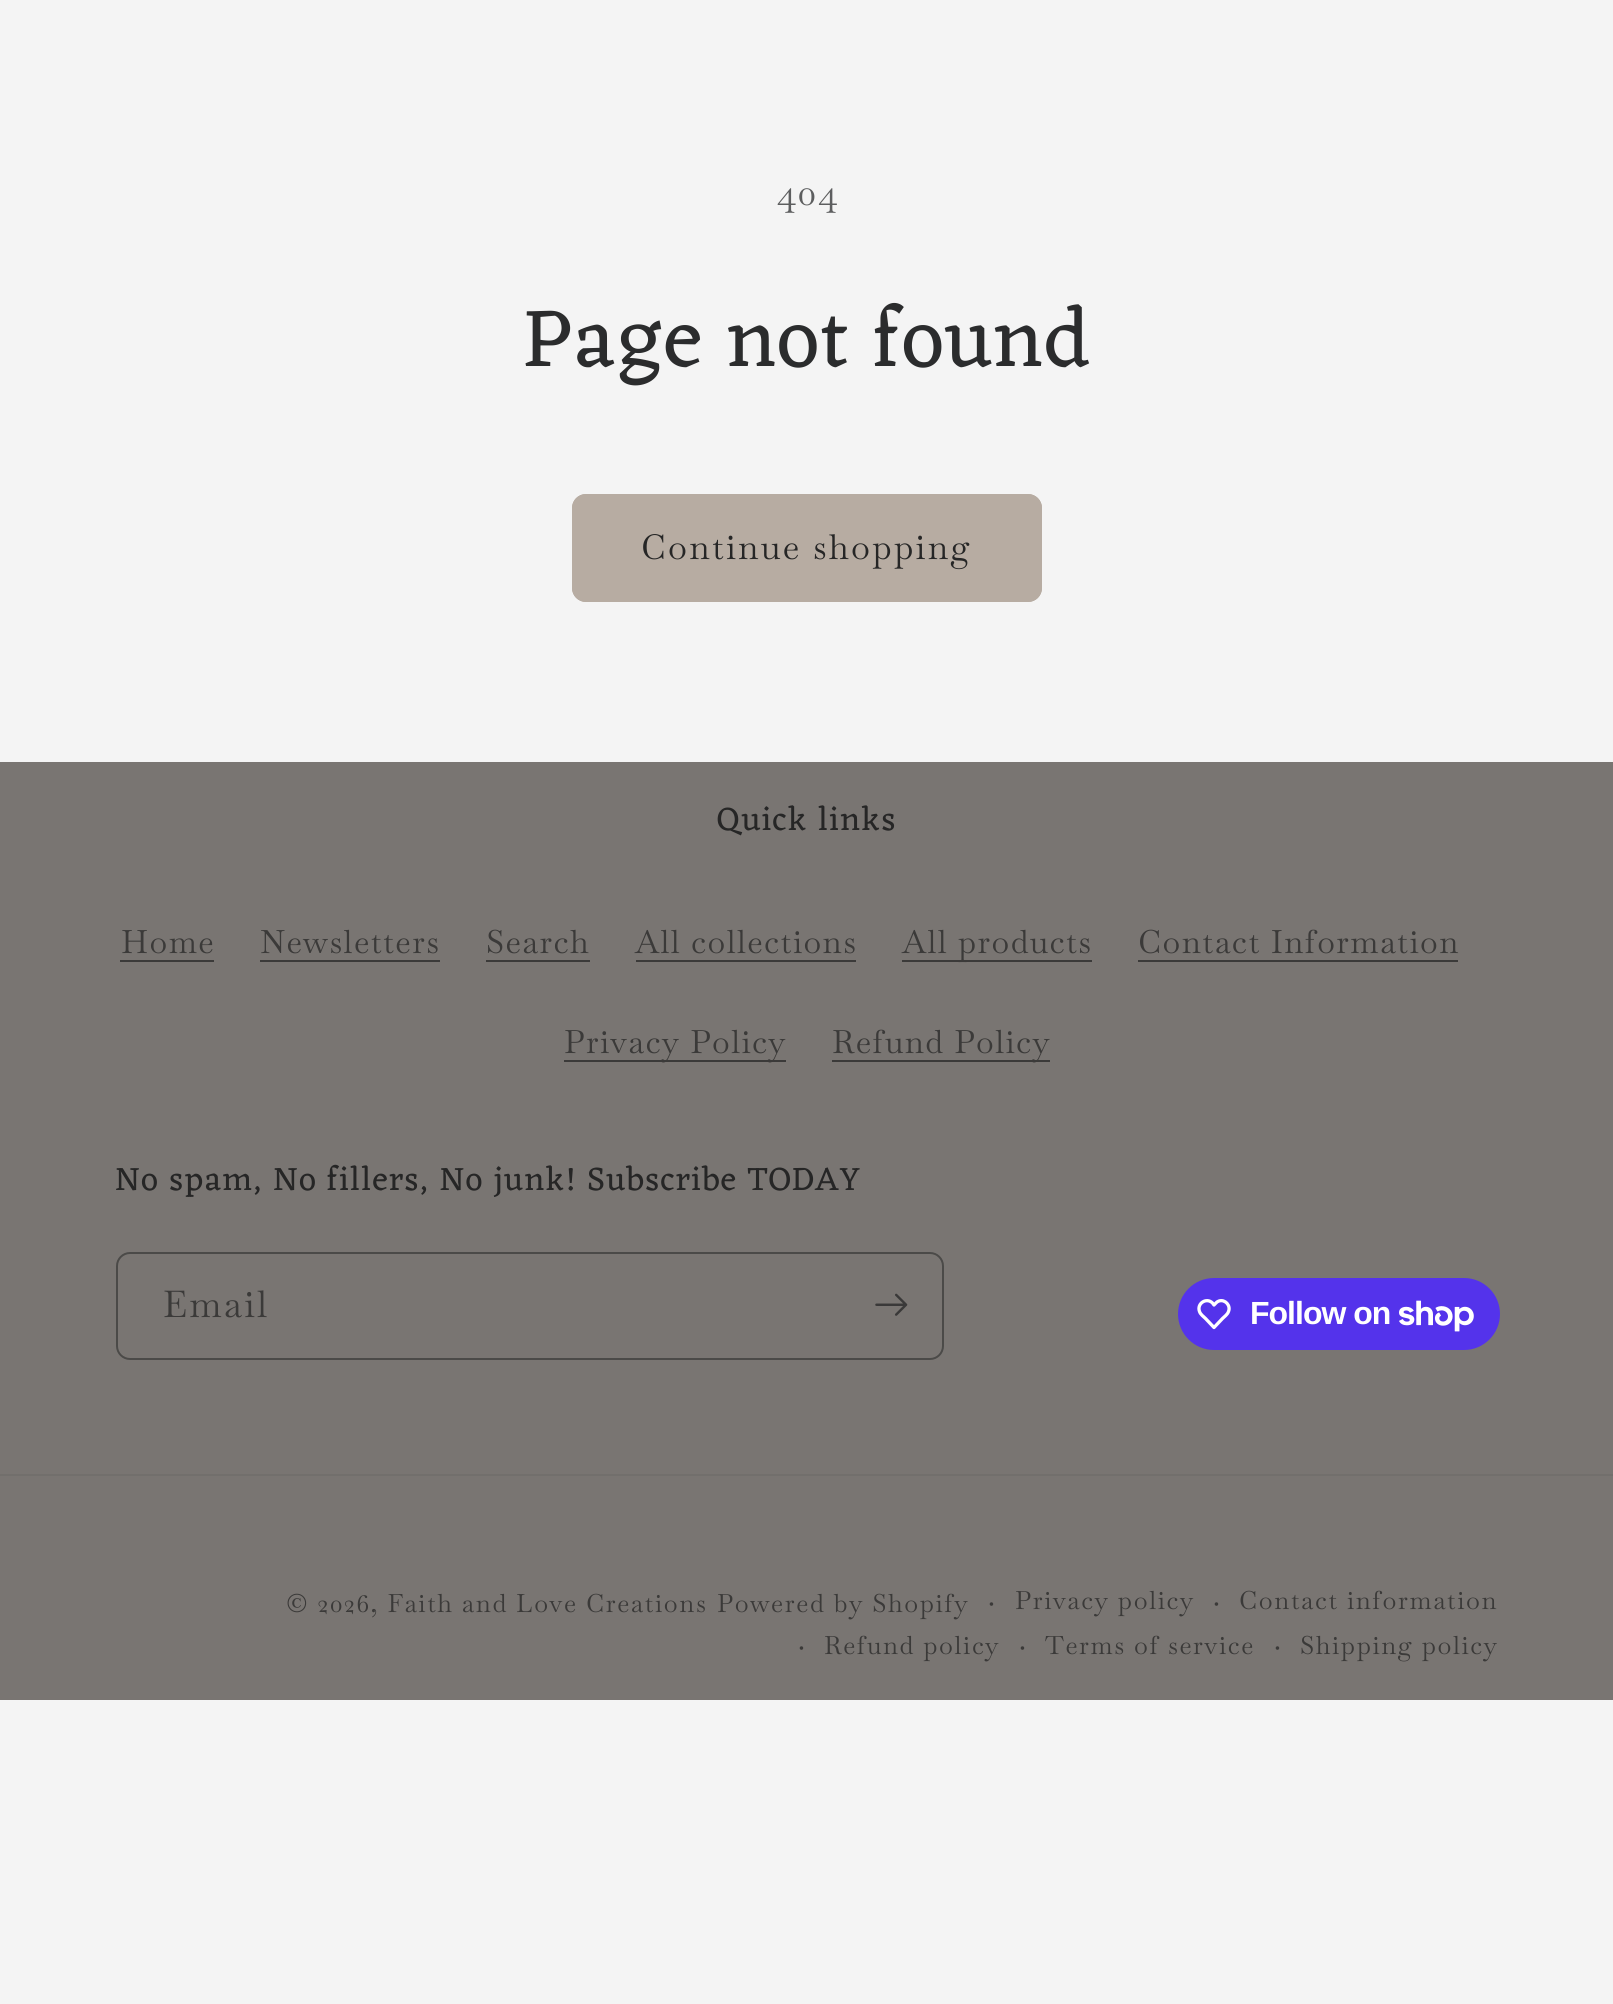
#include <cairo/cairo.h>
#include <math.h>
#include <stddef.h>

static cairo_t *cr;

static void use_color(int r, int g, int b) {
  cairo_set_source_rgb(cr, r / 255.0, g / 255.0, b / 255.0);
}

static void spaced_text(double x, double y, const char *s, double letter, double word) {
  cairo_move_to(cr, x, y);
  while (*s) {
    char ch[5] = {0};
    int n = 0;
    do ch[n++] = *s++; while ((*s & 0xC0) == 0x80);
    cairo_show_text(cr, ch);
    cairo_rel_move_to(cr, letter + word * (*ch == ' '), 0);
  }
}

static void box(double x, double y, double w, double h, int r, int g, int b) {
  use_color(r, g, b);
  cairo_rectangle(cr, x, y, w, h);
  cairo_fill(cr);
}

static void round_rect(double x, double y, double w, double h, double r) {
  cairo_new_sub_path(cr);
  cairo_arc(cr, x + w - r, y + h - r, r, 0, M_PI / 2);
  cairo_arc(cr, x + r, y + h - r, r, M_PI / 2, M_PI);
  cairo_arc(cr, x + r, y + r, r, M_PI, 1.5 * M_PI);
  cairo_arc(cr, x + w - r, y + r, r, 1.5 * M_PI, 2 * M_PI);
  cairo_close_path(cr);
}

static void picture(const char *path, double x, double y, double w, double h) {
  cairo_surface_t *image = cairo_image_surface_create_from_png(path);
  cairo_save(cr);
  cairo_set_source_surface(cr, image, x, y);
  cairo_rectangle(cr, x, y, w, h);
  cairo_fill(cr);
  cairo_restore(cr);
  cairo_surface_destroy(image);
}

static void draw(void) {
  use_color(244, 244, 244);
  cairo_paint(cr);
  use_color(183, 172, 162);
  round_rect(572, 494, 470, 108, 14);
  cairo_fill(cr);
  round_rect(573, 495, 468, 106, 13);
  cairo_stroke(cr);
  box(0, 762, 1613, 938, 121, 117, 114);
  box(120, 960, 94, 2, 59, 58, 57);
  box(260, 960, 180, 2, 59, 58, 57);
  box(486, 960, 104, 2, 59, 58, 57);
  box(636, 960, 220, 2, 59, 58, 57);
  box(902, 960, 190, 2, 59, 58, 57);
  box(1138, 960, 320, 2, 59, 58, 57);
  box(564, 1060, 222, 2, 59, 58, 57);
  box(832, 1060, 218, 2, 59, 58, 57);
  round_rect(117, 1253, 826, 106, 13);
  use_color(75, 74, 72);
  cairo_stroke(cr);
  picture("img_01.png", 875, 1293, 33, 23);
  use_color(84, 51, 235);
  round_rect(1178, 1278, 322, 72, 36);
  cairo_fill(cr);
  cairo_new_path(cr);
  cairo_move_to(cr, 1212.5, 1303);
  cairo_line_to(cr, 1214, 1305);
  cairo_curve_to(cr, 1215.5, 1303.5, 1217, 1301.5, 1219, 1301);
  cairo_curve_to(cr, 1225, 1299, 1231, 1305.5, 1228.5, 1311.5);
  cairo_curve_to(cr, 1227.5, 1314.5, 1224.5, 1316.5, 1222.5, 1318.5);
  cairo_line_to(cr, 1214, 1327.5);
  cairo_line_to(cr, 1205.5, 1318.5);
  cairo_curve_to(cr, 1203.5, 1316.5, 1200.5, 1314.5, 1199.5, 1311.5);
  cairo_curve_to(cr, 1196.5, 1303.5, 1206.5, 1297, 1212.5, 1303);
  cairo_close_path(cr);
  use_color(255, 255, 255);
  cairo_set_line_width(cr, 3.3);
  cairo_set_line_join(cr, CAIRO_LINE_JOIN_ROUND);
  cairo_stroke(cr);
  picture("img_02.png", 1399, 1300, 75, 32);
  box(0, 1474, 1613, 2, 114, 111, 108);
  cairo_select_font_face(cr, "Baskervville", CAIRO_FONT_SLANT_NORMAL, CAIRO_FONT_WEIGHT_NORMAL);
  cairo_set_font_size(cr, 37);
  use_color(93, 94, 95);
  spaced_text(776, 205, "404", 1.4, 0);
  cairo_select_font_face(cr, "Eczar", CAIRO_FONT_SLANT_NORMAL, CAIRO_FONT_WEIGHT_NORMAL);
  cairo_set_font_size(cr, 84);
  use_color(43, 44, 45);
  spaced_text(523, 366, "Page not found", 1.25, 0);
  cairo_select_font_face(cr, "Baskervville", CAIRO_FONT_SLANT_NORMAL, CAIRO_FONT_WEIGHT_NORMAL);
  cairo_set_font_size(cr, 34.5);
  use_color(38, 38, 38);
  spaced_text(641, 559, "Continue shopping", 2.25, 0);
  cairo_select_font_face(cr, "Eczar", CAIRO_FONT_SLANT_NORMAL, CAIRO_FONT_WEIGHT_NORMAL);
  cairo_set_font_size(cr, 33.6);
  spaced_text(717, 830, "Quick links", 1.25, 0);
  cairo_select_font_face(cr, "Baskervville", CAIRO_FONT_SLANT_NORMAL, CAIRO_FONT_WEIGHT_NORMAL);
  cairo_set_font_size(cr, 32.25);
  use_color(59, 58, 57);
  spaced_text(121, 953, "Home", 1.4, 0);
  spaced_text(260, 953, "Newsletters", 1.4, 0);
  spaced_text(486, 953, "Search", 1.4, 0);
  spaced_text(635, 953, "All collections", 1.4, 0);
  spaced_text(902, 953, "All products", 1.4, 0);
  spaced_text(1138, 953, "Contact Information", 1.4, 0);
  spaced_text(564, 1053, "Privacy Policy", 1.4, 0);
  spaced_text(832, 1053, "Refund Policy", 1.4, 0);
  cairo_select_font_face(cr, "Eczar", CAIRO_FONT_SLANT_NORMAL, CAIRO_FONT_WEIGHT_NORMAL);
  cairo_set_font_size(cr, 33.6);
  use_color(38, 38, 38);
  spaced_text(115, 1190, "No spam, No fillers, No junk! Subscribe TODAY", 1.25, 0);
  cairo_select_font_face(cr, "Baskervville", CAIRO_FONT_SLANT_NORMAL, CAIRO_FONT_WEIGHT_NORMAL);
  cairo_set_font_size(cr, 37);
  use_color(59, 58, 57);
  spaced_text(163, 1317, "Email", 2.25, 0);
  cairo_select_font_face(cr, "Liberation Sans", CAIRO_FONT_SLANT_NORMAL, CAIRO_FONT_WEIGHT_BOLD);
  cairo_set_font_size(cr, 32);
  use_color(255, 255, 255);
  spaced_text(1250, 1324, "Follow on", -1, 0);
  cairo_select_font_face(cr, "Baskervville", CAIRO_FONT_SLANT_NORMAL, CAIRO_FONT_WEIGHT_NORMAL);
  cairo_set_font_size(cr, 25.25);
  use_color(59, 58, 57);
  spaced_text(286, 1612, "© 2026, Faith and Love Creations", 1.6, 0);
  cairo_set_font_size(cr, 28);
  spaced_text(988, 1612, "·", 1.6, 0);
  cairo_set_font_size(cr, 25.25);
  spaced_text(1015, 1609, "Privacy policy", 1.6, 0);
  cairo_set_font_size(cr, 28);
  spaced_text(1213, 1612, "·", 1.6, 0);
  cairo_set_font_size(cr, 25.25);
  spaced_text(1239, 1609, "Contact information", 1.6, 0);
  cairo_set_font_size(cr, 28);
  spaced_text(798, 1656, "·", 1.6, 0);
  cairo_set_font_size(cr, 25.25);
  spaced_text(824, 1654, "Refund policy", 1.6, 0);
  cairo_set_font_size(cr, 28);
  spaced_text(1019, 1656, "·", 1.6, 0);
  cairo_set_font_size(cr, 25.25);
  spaced_text(1045, 1654, "Terms of service", 1.6, 0);
  cairo_set_font_size(cr, 28);
  spaced_text(1274, 1656, "·", 1.6, 0);
  cairo_set_font_size(cr, 25.25);
  spaced_text(1300, 1654, "Shipping policy", 1.6, 0);
  spaced_text(717, 1612, "Powered by Shopify", 1.6, 0);
}

int main(void) {
  cairo_surface_t *surface = cairo_image_surface_create(CAIRO_FORMAT_RGB24, 1613, 2004);
  cr = cairo_create(surface);
  cairo_font_options_t *options = cairo_font_options_create();
  cairo_font_options_set_hint_metrics(options, CAIRO_HINT_METRICS_OFF);
  cairo_font_options_set_hint_style(options, CAIRO_HINT_STYLE_NONE);
  cairo_set_font_options(cr, options);
  cairo_set_miter_limit(cr, 4);
  draw();
  cairo_surface_write_to_png(surface, "out.png");
  cairo_font_options_destroy(options);
  cairo_destroy(cr);
  cairo_surface_destroy(surface);
  return 0;
}
